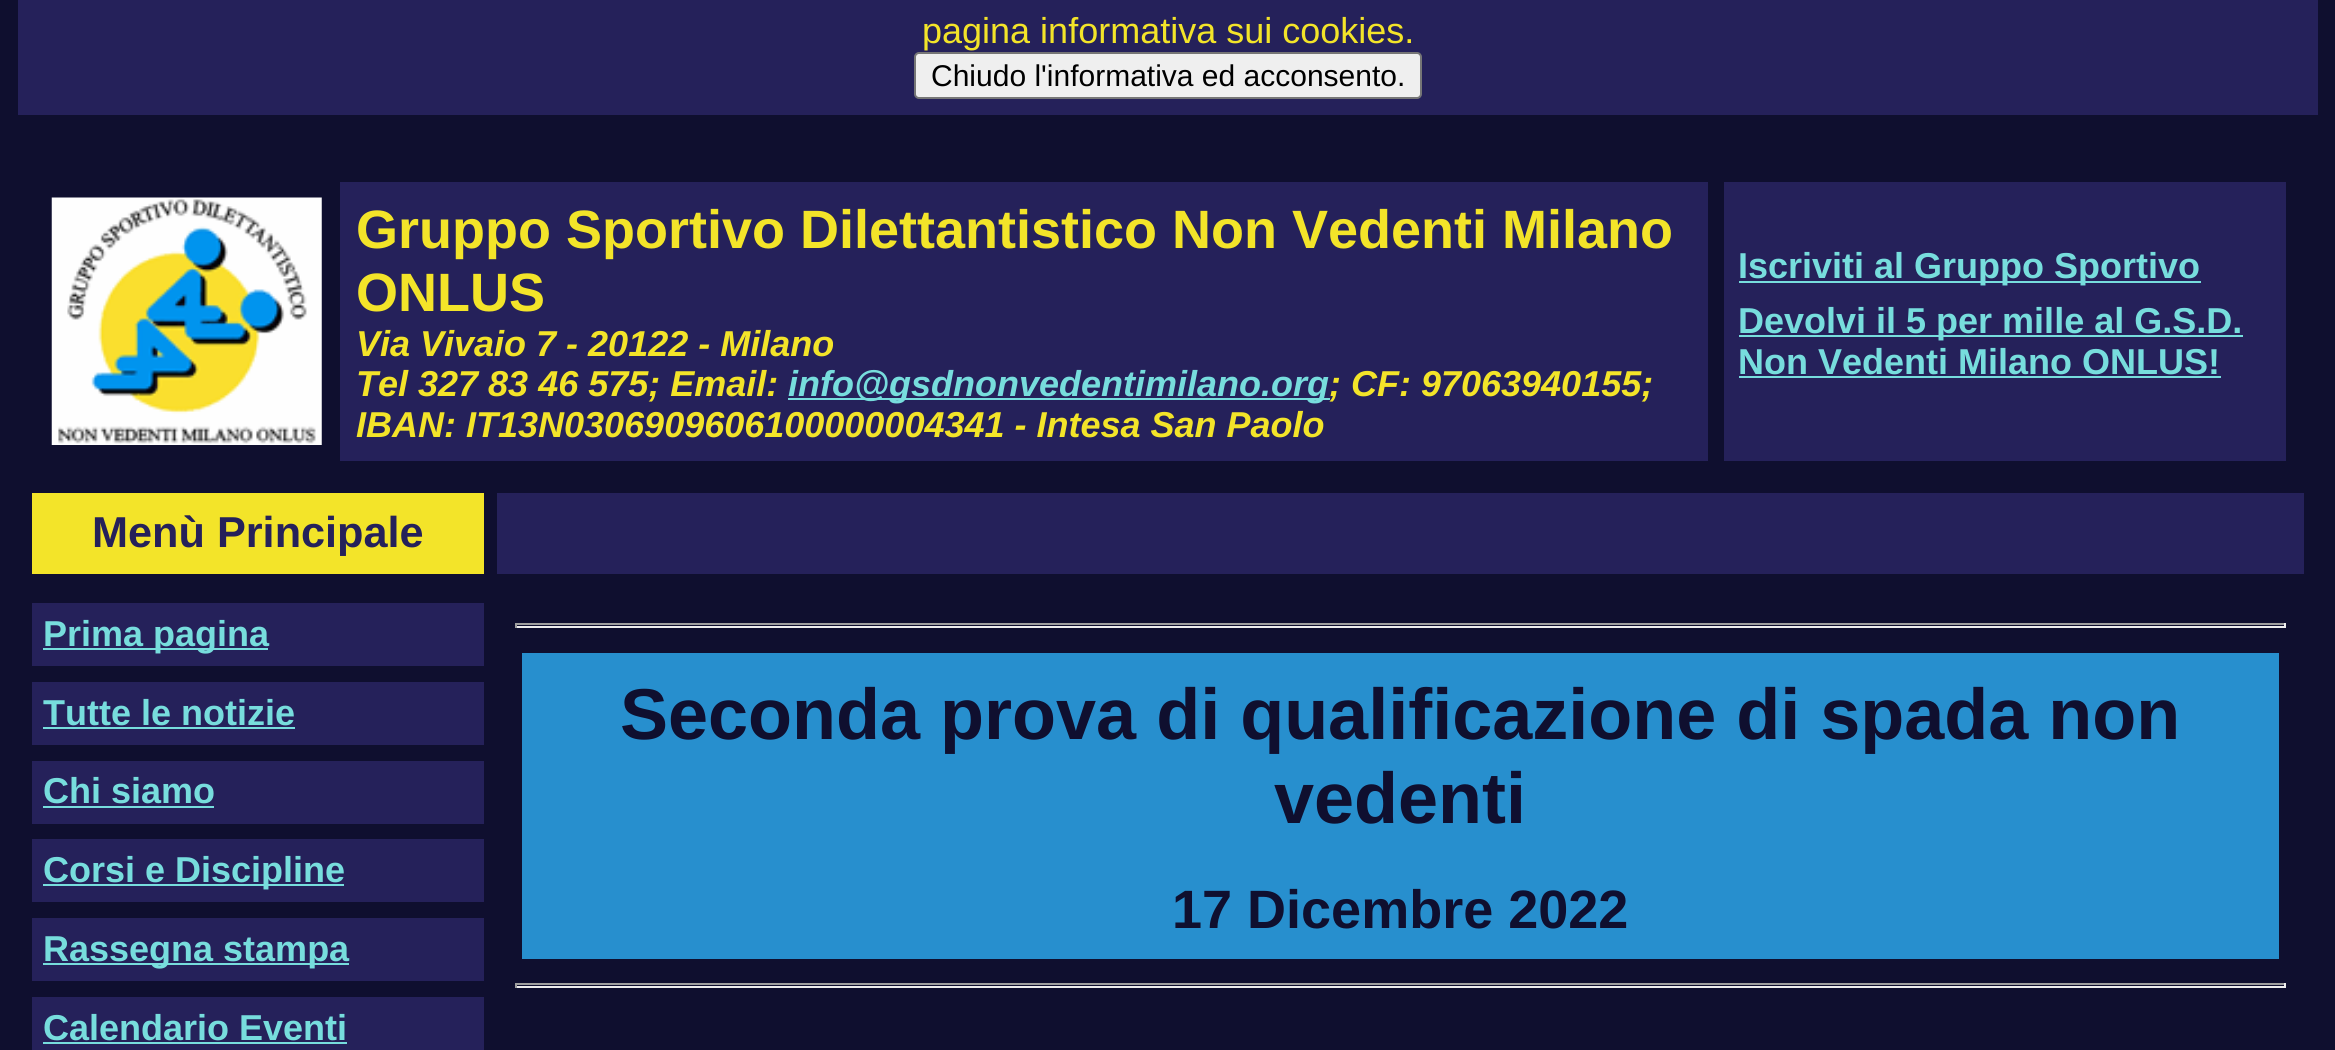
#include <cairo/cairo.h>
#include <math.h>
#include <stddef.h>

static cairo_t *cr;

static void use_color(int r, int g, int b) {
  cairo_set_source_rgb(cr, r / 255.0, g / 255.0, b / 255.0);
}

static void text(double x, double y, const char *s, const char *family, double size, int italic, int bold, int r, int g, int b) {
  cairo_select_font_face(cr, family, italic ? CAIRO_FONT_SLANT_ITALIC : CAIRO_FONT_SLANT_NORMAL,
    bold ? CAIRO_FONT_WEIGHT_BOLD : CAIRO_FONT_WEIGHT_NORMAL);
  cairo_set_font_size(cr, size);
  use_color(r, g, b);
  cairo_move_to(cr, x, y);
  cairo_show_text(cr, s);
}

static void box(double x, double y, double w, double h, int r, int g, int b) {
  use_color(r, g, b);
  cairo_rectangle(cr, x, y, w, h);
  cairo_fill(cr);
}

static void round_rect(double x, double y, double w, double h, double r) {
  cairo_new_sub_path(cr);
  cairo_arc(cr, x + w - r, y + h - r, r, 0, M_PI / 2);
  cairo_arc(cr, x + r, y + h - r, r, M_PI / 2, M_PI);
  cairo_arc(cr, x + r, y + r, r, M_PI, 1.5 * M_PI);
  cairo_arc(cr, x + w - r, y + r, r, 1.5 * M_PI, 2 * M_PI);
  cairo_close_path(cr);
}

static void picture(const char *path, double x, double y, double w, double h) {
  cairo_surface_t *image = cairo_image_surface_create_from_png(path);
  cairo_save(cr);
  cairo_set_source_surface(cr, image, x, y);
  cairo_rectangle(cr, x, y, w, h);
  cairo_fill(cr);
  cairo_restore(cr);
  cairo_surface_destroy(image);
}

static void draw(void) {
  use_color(15, 15, 47);
  cairo_paint(cr);
  box(18, 0, 2300, 115, 37, 33, 90);
  use_color(239, 239, 239);
  round_rect(915, 53, 506, 45, 4);
  cairo_fill_preserve(cr);
  use_color(118, 118, 118);
  cairo_stroke(cr);
  picture("img_01.png", 51, 197, 271, 248);
  box(340, 182, 1368, 279, 37, 33, 90);
  box(788, 398, 542, 2, 119, 221, 221);
  box(1724, 182, 562, 279, 37, 33, 90);
  box(1739, 281, 462, 2, 119, 221, 221);
  box(1739, 335, 504, 2, 119, 221, 221);
  box(1739, 376, 482, 2, 119, 221, 221);
  box(32, 493, 452, 81, 243, 228, 41);
  box(497, 493, 1807, 81, 37, 33, 90);
  box(32, 603, 452, 63, 37, 33, 90);
  box(43, 648, 225, 2, 119, 221, 221);
  box(32, 682, 452, 63, 37, 33, 90);
  box(43, 727, 252, 2, 119, 221, 221);
  box(32, 761, 452, 63, 37, 33, 90);
  box(43, 806, 171, 2, 119, 221, 221);
  box(32, 839, 452, 63, 37, 33, 90);
  box(43, 884, 301, 2, 119, 221, 221);
  box(32, 918, 452, 63, 37, 33, 90);
  box(43, 963, 306, 2, 119, 221, 221);
  box(32, 997, 452, 53, 37, 33, 90);
  box(43, 1042, 304, 2, 119, 221, 221);
  box(515, 623, 1771, 2, 159, 159, 159);
  box(2284, 623, 2, 5, 238, 238, 238);
  box(515, 626, 1771, 2, 238, 238, 238);
  box(515, 623, 2, 5, 159, 159, 159);
  box(522, 653, 1757, 306, 39, 143, 206);
  box(515, 983, 1771, 2, 159, 159, 159);
  box(2284, 983, 2, 5, 238, 238, 238);
  box(515, 986, 1771, 2, 238, 238, 238);
  box(515, 983, 2, 5, 159, 159, 159);
  text(922, 43, "pagina informativa sui cookies.", "Liberation Sans", 36, 0, 0, 243, 228, 41);
  text(931, 86, "Chiudo l'informativa ed acconsento.", "Liberation Sans", 30, 0, 0, 0, 0, 0);
  text(356, 248, "Gruppo Sportivo Dilettantistico Non Vedenti Milano", "Liberation Sans", 54, 0, 1, 243, 228, 41);
  text(356, 311, "ONLUS", "Liberation Sans", 54, 0, 1, 243, 228, 41);
  text(356, 356, "Via Vivaio 7 - 20122 - Milano", "Liberation Sans", 36, 1, 1, 243, 228, 41);
  text(356, 396, "Tel 327 83 46 575; Email:", "Liberation Sans", 36, 1, 1, 243, 228, 41);
  text(788, 396, "info@gsdnonvedentimilano.org", "Liberation Sans", 36, 1, 1, 119, 221, 221);
  text(1329, 396, "; CF: 97063940155;", "Liberation Sans", 36, 1, 1, 243, 228, 41);
  text(356, 437, "IBAN: IT13N0306909606100000004341 - Intesa San Paolo", "Liberation Sans", 36, 1, 1, 243, 228, 41);
  text(1738, 278, "Iscriviti al Gruppo Sportivo", "Liberation Sans", 36, 0, 1, 119, 221, 221);
  text(1738, 333, "Devolvi il 5 per mille al G.S.D.", "Liberation Sans", 36, 0, 1, 119, 221, 221);
  text(1738, 374, "Non Vedenti Milano ONLUS!", "Liberation Sans", 36, 0, 1, 119, 221, 221);
  text(92, 547, "Menù Principale", "Liberation Sans", 43.25, 0, 1, 37, 33, 90);
  text(43, 646, "Prima pagina", "Liberation Sans", 36, 0, 1, 119, 221, 221);
  text(43, 725, "Tutte le notizie", "Liberation Sans", 36, 0, 1, 119, 221, 221);
  text(43, 803, "Chi siamo", "Liberation Sans", 36, 0, 1, 119, 221, 221);
  text(43, 882, "Corsi e Discipline", "Liberation Sans", 36, 0, 1, 119, 221, 221);
  text(43, 961, "Rassegna stampa", "Liberation Sans", 36, 0, 1, 119, 221, 221);
  text(43, 1040, "Calendario Eventi", "Liberation Sans", 36, 0, 1, 119, 221, 221);
  text(620, 739, "Seconda prova di qualificazione di spada non", "Liberation Sans", 72, 0, 1, 15, 15, 47);
  text(1274, 823, "vedenti", "Liberation Sans", 72, 0, 1, 15, 15, 47);
  text(1172, 928, "17 Dicembre 2022", "Liberation Sans", 54, 0, 1, 15, 15, 47);
}

int main(void) {
  cairo_surface_t *surface = cairo_image_surface_create(CAIRO_FORMAT_RGB24, 2335, 1050);
  cr = cairo_create(surface);
  cairo_font_options_t *options = cairo_font_options_create();
  cairo_font_options_set_hint_metrics(options, CAIRO_HINT_METRICS_OFF);
  cairo_font_options_set_hint_style(options, CAIRO_HINT_STYLE_NONE);
  cairo_set_font_options(cr, options);
  cairo_set_miter_limit(cr, 4);
  draw();
  cairo_surface_write_to_png(surface, "out.png");
  cairo_font_options_destroy(options);
  cairo_destroy(cr);
  cairo_surface_destroy(surface);
  return 0;
}
